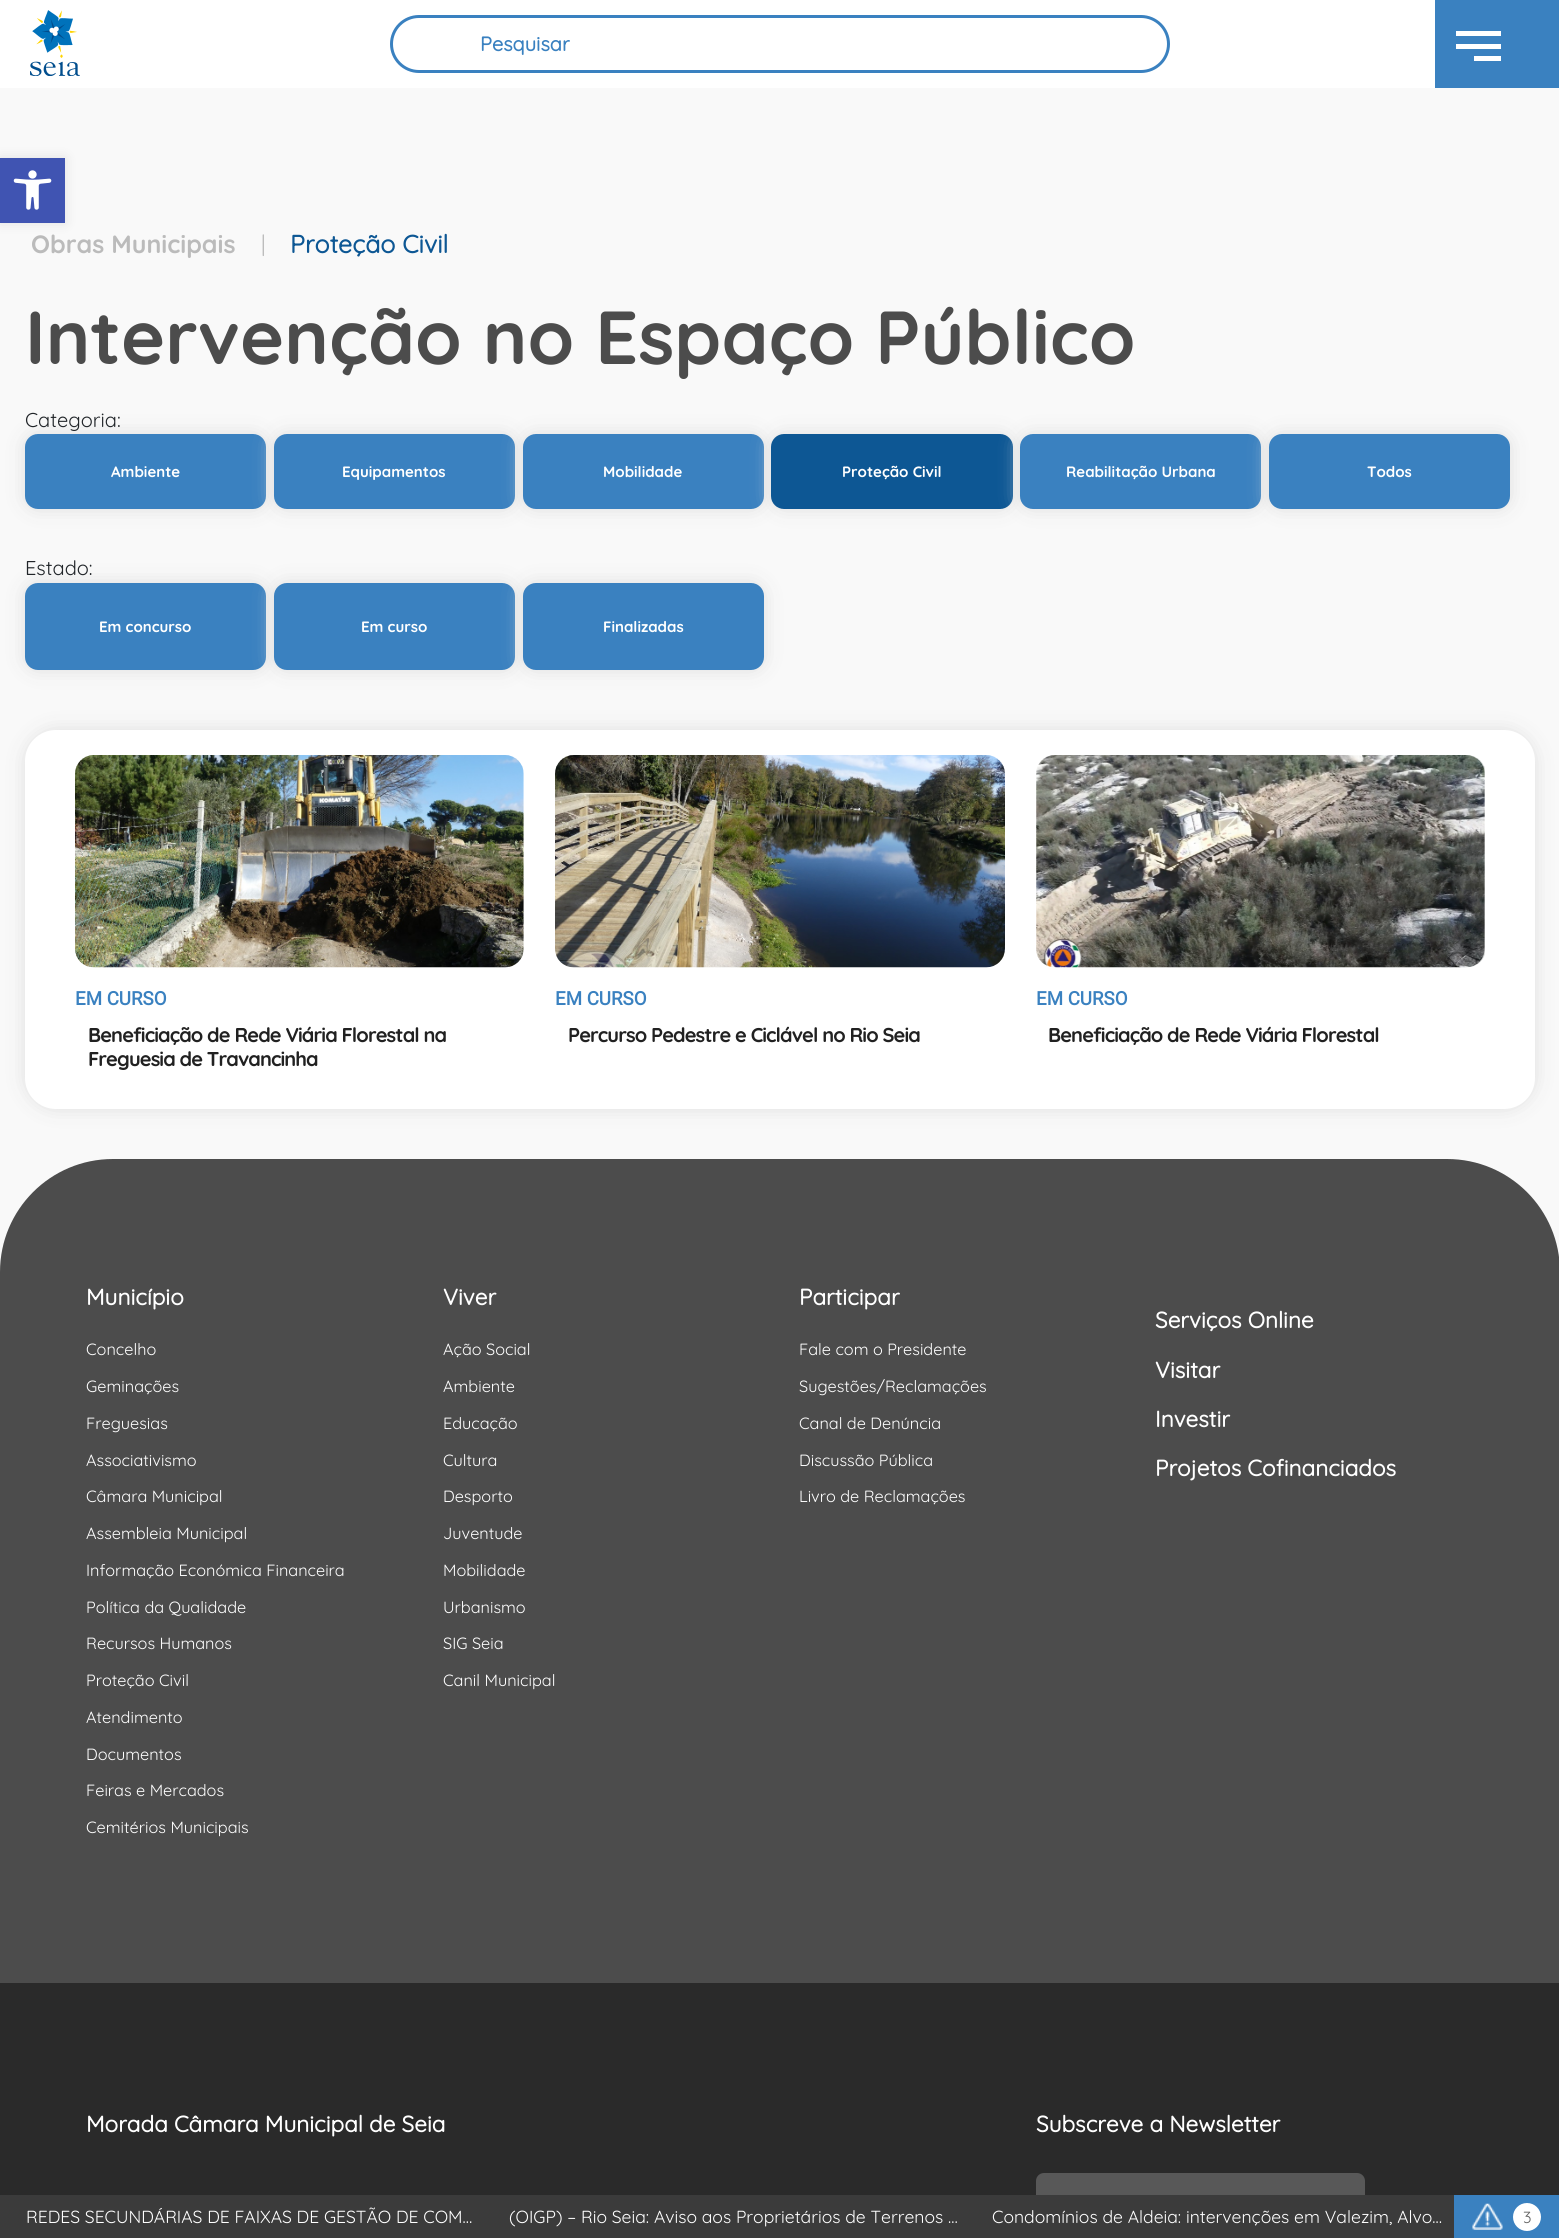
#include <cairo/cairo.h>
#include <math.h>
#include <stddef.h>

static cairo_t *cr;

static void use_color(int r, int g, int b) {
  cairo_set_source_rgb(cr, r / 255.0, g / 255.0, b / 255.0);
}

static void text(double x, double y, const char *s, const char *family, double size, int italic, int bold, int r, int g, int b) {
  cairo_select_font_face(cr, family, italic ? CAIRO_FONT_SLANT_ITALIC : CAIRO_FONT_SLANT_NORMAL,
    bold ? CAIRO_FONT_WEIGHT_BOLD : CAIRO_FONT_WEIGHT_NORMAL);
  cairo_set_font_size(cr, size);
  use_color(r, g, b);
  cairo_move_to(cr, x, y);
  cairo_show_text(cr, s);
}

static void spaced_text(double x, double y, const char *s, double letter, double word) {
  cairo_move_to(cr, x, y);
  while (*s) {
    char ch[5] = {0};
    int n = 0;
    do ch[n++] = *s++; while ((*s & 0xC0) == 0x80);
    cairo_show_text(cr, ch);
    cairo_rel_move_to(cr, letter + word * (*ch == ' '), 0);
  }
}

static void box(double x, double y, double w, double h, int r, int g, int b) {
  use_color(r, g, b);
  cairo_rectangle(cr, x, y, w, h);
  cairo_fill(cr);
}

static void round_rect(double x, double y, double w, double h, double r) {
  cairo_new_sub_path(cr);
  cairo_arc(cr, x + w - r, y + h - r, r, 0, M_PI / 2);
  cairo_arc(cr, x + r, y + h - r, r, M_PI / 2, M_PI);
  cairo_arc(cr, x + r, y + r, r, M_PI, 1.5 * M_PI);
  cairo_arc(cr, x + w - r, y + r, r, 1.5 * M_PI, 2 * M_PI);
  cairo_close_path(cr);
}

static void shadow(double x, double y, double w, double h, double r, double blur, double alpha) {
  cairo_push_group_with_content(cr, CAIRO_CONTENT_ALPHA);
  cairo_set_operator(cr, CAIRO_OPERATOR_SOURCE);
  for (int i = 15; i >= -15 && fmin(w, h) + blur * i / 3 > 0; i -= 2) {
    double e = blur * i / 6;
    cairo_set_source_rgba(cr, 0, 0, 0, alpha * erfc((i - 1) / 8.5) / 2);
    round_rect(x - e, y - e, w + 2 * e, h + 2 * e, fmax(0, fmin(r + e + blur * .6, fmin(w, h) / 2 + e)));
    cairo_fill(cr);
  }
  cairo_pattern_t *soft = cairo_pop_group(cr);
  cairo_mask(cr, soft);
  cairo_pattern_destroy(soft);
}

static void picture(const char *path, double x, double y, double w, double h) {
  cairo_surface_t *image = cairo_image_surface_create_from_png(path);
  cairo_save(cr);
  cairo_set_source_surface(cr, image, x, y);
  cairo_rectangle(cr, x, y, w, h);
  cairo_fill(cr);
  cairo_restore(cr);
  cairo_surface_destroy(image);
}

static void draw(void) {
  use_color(255, 255, 255);
  cairo_paint(cr);
  picture("img_01.png", 30, 10, 50, 66);
  round_rect(391.5, 16.5, 777, 55, 27.5);
  use_color(58, 129, 192);
  cairo_set_line_width(cr, 3);
  cairo_stroke(cr);
  box(1435, 0, 124, 88, 58, 129, 192);
  box(1456, 31, 45, 5, 255, 255, 255);
  box(1456, 44, 45, 5, 255, 255, 255);
  box(1474, 56, 27, 5, 255, 255, 255);
  box(0, 88, 1559, 1184, 249, 249, 249);
  use_color(0, 0, 0);
  shadow(0, 158, 65, 65, 0, 6, 0.1);
  box(0, 158, 65, 65, 64, 84, 178);
  picture("img_02.png", 13, 170, 39, 40);
  use_color(219, 219, 219);
  shadow(26, 435, 239, 73, 11, 9.5, 1);
  use_color(58, 129, 192);
  round_rect(25, 434, 241, 75, 13);
  cairo_fill(cr);
  use_color(219, 219, 219);
  shadow(275, 435, 239, 73, 11, 9.5, 1);
  use_color(58, 129, 192);
  round_rect(274, 434, 241, 75, 13);
  cairo_fill(cr);
  use_color(219, 219, 219);
  shadow(524, 435, 239, 73, 11, 9.5, 1);
  use_color(58, 129, 192);
  round_rect(523, 434, 241, 75, 13);
  cairo_fill(cr);
  use_color(219, 219, 219);
  shadow(773, 435, 238, 73, 11, 9.5, 1);
  use_color(13, 87, 148);
  round_rect(771, 434, 242, 75, 13);
  cairo_fill(cr);
  use_color(219, 219, 219);
  shadow(1021, 435, 239, 73, 11, 9.5, 1);
  use_color(58, 129, 192);
  round_rect(1020, 434, 241, 75, 13);
  cairo_fill(cr);
  use_color(219, 219, 219);
  shadow(1270, 435, 239, 73, 11, 9.5, 1);
  use_color(58, 129, 192);
  round_rect(1269, 434, 241, 75, 13);
  cairo_fill(cr);
  use_color(219, 219, 219);
  shadow(26, 584, 239, 85, 11, 9.5, 1);
  use_color(58, 129, 192);
  round_rect(25, 583, 241, 87, 13);
  cairo_fill(cr);
  use_color(219, 219, 219);
  shadow(275, 584, 239, 85, 11, 9.5, 1);
  use_color(58, 129, 192);
  round_rect(274, 583, 241, 87, 13);
  cairo_fill(cr);
  use_color(219, 219, 219);
  shadow(524, 584, 239, 85, 11, 9.5, 1);
  use_color(58, 129, 192);
  round_rect(523, 583, 241, 87, 13);
  cairo_fill(cr);
  use_color(219, 219, 219);
  shadow(26, 731, 1508, 377, 30, 9.5, 1);
  use_color(255, 255, 255);
  round_rect(25, 730, 1510, 379, 31);
  cairo_fill(cr);
  picture("img_03.png", 75, 755, 449, 213);
  picture("img_04.png", 555, 755, 450, 213);
  picture("img_05.png", 1036, 755, 449, 213);
  use_color(76, 76, 76);
  cairo_new_path(cr);
  cairo_move_to(cr, 113, 1159);
  cairo_line_to(cr, 1447, 1159);
  cairo_curve_to(cr, 1509.5, 1159, 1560, 1209.5, 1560, 1272);
  cairo_line_to(cr, 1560, 1983);
  cairo_line_to(cr, 0, 1983);
  cairo_line_to(cr, 0, 1272);
  cairo_curve_to(cr, 0, 1209.5, 50.5, 1159, 113, 1159);
  cairo_close_path(cr);
  cairo_fill(cr);
  box(0, 1983, 1559, 212, 42, 42, 42);
  use_color(88, 88, 88);
  round_rect(1036, 2173, 329, 62, 8);
  cairo_fill(cr);
  box(0, 2195, 1454, 43, 59, 59, 59);
  box(1454, 2195, 105, 43, 58, 129, 192);
  picture("img_06.png", 1472, 2203, 31, 27);
  use_color(255, 255, 255);
  cairo_arc(cr, 1527, 2217, 14, 0, 2 * M_PI);
  cairo_fill(cr);
  text(480, 51, "Pesquisar", "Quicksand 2", 20, 0, 1, 58, 129, 192);
  text(31, 253, "Obras Municipais", "Quicksand", 25, 0, 1, 187, 187, 187);
  text(261, 252, "|", "Quicksand", 22.5, 0, 0, 187, 187, 187);
  text(290, 253, "Proteção Civil", "Quicksand 2", 25, 0, 1, 13, 87, 148);
  text(25, 364, "Intervenção no Espaço Público", "Quicksand", 75, 0, 1, 76, 76, 76);
  text(25, 427, "Categoria:", "Quicksand", 20, 0, 0, 33, 37, 41);
  text(111, 477, "Ambiente", "Quicksand", 15, 0, 1, 255, 255, 255);
  text(342, 477, "Equipamentos", "Quicksand", 15, 0, 1, 255, 255, 255);
  text(603, 477, "Mobilidade", "Quicksand", 15, 0, 1, 255, 255, 255);
  text(842, 477, "Proteção Civil", "Quicksand", 15, 0, 1, 255, 255, 255);
  text(1066, 477, "Reabilitação Urbana", "Quicksand", 15, 0, 1, 255, 255, 255);
  text(1367, 477, "Todos", "Quicksand", 15, 0, 1, 255, 255, 255);
  text(25, 575, "Estado:", "Quicksand", 20, 0, 0, 33, 37, 41);
  text(99, 632, "Em concurso", "Quicksand", 15, 0, 1, 255, 255, 255);
  text(361, 632, "Em curso", "Quicksand", 15, 0, 1, 255, 255, 255);
  text(603, 632, "Finalizadas", "Quicksand", 15, 0, 1, 255, 255, 255);
  text(75, 1005, "EM CURSO", "Roboto", 18.75, 0, 1, 58, 129, 192);
  cairo_select_font_face(cr, "Quicksand", CAIRO_FONT_SLANT_NORMAL, CAIRO_FONT_WEIGHT_BOLD);
  cairo_set_font_size(cr, 20);
  use_color(33, 33, 33);
  spaced_text(88, 1042, "Beneficiação de Rede Viária Florestal na", -0.9, 0);
  spaced_text(88, 1066, "Freguesia de Travancinha", -0.9, 0);
  text(555, 1005, "EM CURSO", "Roboto", 18.75, 0, 1, 58, 129, 192);
  cairo_select_font_face(cr, "Quicksand", CAIRO_FONT_SLANT_NORMAL, CAIRO_FONT_WEIGHT_BOLD);
  cairo_set_font_size(cr, 20);
  use_color(33, 33, 33);
  spaced_text(568, 1042, "Percurso Pedestre e Ciclável no Rio Seia", -0.9, 0);
  text(1036, 1005, "EM CURSO", "Roboto", 18.75, 0, 1, 58, 129, 192);
  cairo_select_font_face(cr, "Quicksand", CAIRO_FONT_SLANT_NORMAL, CAIRO_FONT_WEIGHT_BOLD);
  cairo_set_font_size(cr, 20);
  use_color(33, 33, 33);
  spaced_text(1048, 1042, "Beneficiação de Rede Viária Florestal", -0.9, 0);
  text(86, 1305, "Município", "Quicksand 2", 22.5, 0, 1, 255, 255, 255);
  text(86, 1355, "Concelho", "Quicksand", 16.25, 0, 0, 255, 255, 255);
  text(86, 1392, "Geminações", "Quicksand", 16.25, 0, 0, 255, 255, 255);
  text(86, 1429, "Freguesias", "Quicksand", 16.25, 0, 0, 255, 255, 255);
  text(86, 1466, "Associativismo", "Quicksand", 16.25, 0, 0, 255, 255, 255);
  text(86, 1502, "Câmara Municipal", "Quicksand", 16.25, 0, 0, 255, 255, 255);
  text(86, 1539, "Assembleia Municipal", "Quicksand", 16.25, 0, 0, 255, 255, 255);
  text(86, 1576, "Informação Económica Financeira", "Quicksand", 16.25, 0, 0, 255, 255, 255);
  text(86, 1613, "Política da Qualidade", "Quicksand", 16.25, 0, 0, 255, 255, 255);
  text(86, 1649, "Recursos Humanos", "Quicksand", 16.25, 0, 0, 255, 255, 255);
  text(86, 1686, "Proteção Civil", "Quicksand", 16.25, 0, 0, 255, 255, 255);
  text(86, 1723, "Atendimento", "Quicksand", 16.25, 0, 0, 255, 255, 255);
  text(86, 1760, "Documentos", "Quicksand", 16.25, 0, 0, 255, 255, 255);
  text(86, 1796, "Feiras e Mercados", "Quicksand", 16.25, 0, 0, 255, 255, 255);
  text(86, 1833, "Cemitérios Municipais", "Quicksand", 16.25, 0, 0, 255, 255, 255);
  text(443, 1305, "Viver", "Quicksand 2", 22.5, 0, 1, 255, 255, 255);
  text(443, 1355, "Ação Social", "Quicksand", 16.25, 0, 0, 255, 255, 255);
  text(443, 1392, "Ambiente", "Quicksand", 16.25, 0, 0, 255, 255, 255);
  text(443, 1429, "Educação", "Quicksand", 16.25, 0, 0, 255, 255, 255);
  text(443, 1466, "Cultura", "Quicksand", 16.25, 0, 0, 255, 255, 255);
  text(443, 1502, "Desporto", "Quicksand", 16.25, 0, 0, 255, 255, 255);
  text(443, 1539, "Juventude", "Quicksand", 16.25, 0, 0, 255, 255, 255);
  text(443, 1576, "Mobilidade", "Quicksand", 16.25, 0, 0, 255, 255, 255);
  text(443, 1613, "Urbanismo", "Quicksand", 16.25, 0, 0, 255, 255, 255);
  text(443, 1649, "SIG Seia", "Quicksand", 16.25, 0, 0, 255, 255, 255);
  text(443, 1686, "Canil Municipal", "Quicksand", 16.25, 0, 0, 255, 255, 255);
  text(799, 1305, "Participar", "Quicksand 2", 22.5, 0, 1, 255, 255, 255);
  text(799, 1355, "Fale com o Presidente", "Quicksand", 16.25, 0, 0, 255, 255, 255);
  text(799, 1392, "Sugestões/Reclamações", "Quicksand", 16.25, 0, 0, 255, 255, 255);
  text(799, 1429, "Canal de Denúncia", "Quicksand", 16.25, 0, 0, 255, 255, 255);
  text(799, 1466, "Discussão Pública", "Quicksand", 16.25, 0, 0, 255, 255, 255);
  text(799, 1502, "Livro de Reclamações", "Quicksand", 16.25, 0, 0, 255, 255, 255);
  text(1155, 1328, "Serviços Online", "Quicksand 2", 22.5, 0, 1, 255, 255, 255);
  text(1155, 1378, "Visitar", "Quicksand 2", 22.5, 0, 1, 255, 255, 255);
  text(1155, 1427, "Investir", "Quicksand 2", 22.5, 0, 1, 255, 255, 255);
  text(1155, 1476, "Projetos Cofinanciados", "Quicksand 2", 22.5, 0, 1, 255, 255, 255);
  text(86, 2132, "Morada Câmara Municipal de Seia", "Quicksand 2", 22.5, 0, 1, 255, 255, 255);
  text(1036, 2132, "Subscreve a Newsletter", "Quicksand 2", 22.5, 0, 1, 255, 255, 255);
  text(26, 2223, "REDES SECUNDÁRIAS DE FAIXAS DE GESTÃO DE COM…", "Quicksand", 17.5, 0, 0, 255, 255, 255);
  text(509, 2223, "(OIGP) – Rio Seia: Aviso aos Proprietários de Terrenos …", "Quicksand", 17.5, 0, 0, 255, 255, 255);
  text(992, 2223, "Condomínios de Aldeia: intervenções em Valezim, Alvo…", "Quicksand", 17.5, 0, 0, 255, 255, 255);
  text(1523, 2223, "3", "Quicksand", 16.25, 0, 0, 99, 99, 99);
}

int main(void) {
  cairo_surface_t *surface = cairo_image_surface_create(CAIRO_FORMAT_RGB24, 1559, 2238);
  cr = cairo_create(surface);
  cairo_font_options_t *options = cairo_font_options_create();
  cairo_font_options_set_hint_metrics(options, CAIRO_HINT_METRICS_OFF);
  cairo_font_options_set_hint_style(options, CAIRO_HINT_STYLE_NONE);
  cairo_set_font_options(cr, options);
  cairo_set_miter_limit(cr, 4);
  draw();
  cairo_surface_write_to_png(surface, "out.png");
  cairo_font_options_destroy(options);
  cairo_destroy(cr);
  cairo_surface_destroy(surface);
  return 0;
}
